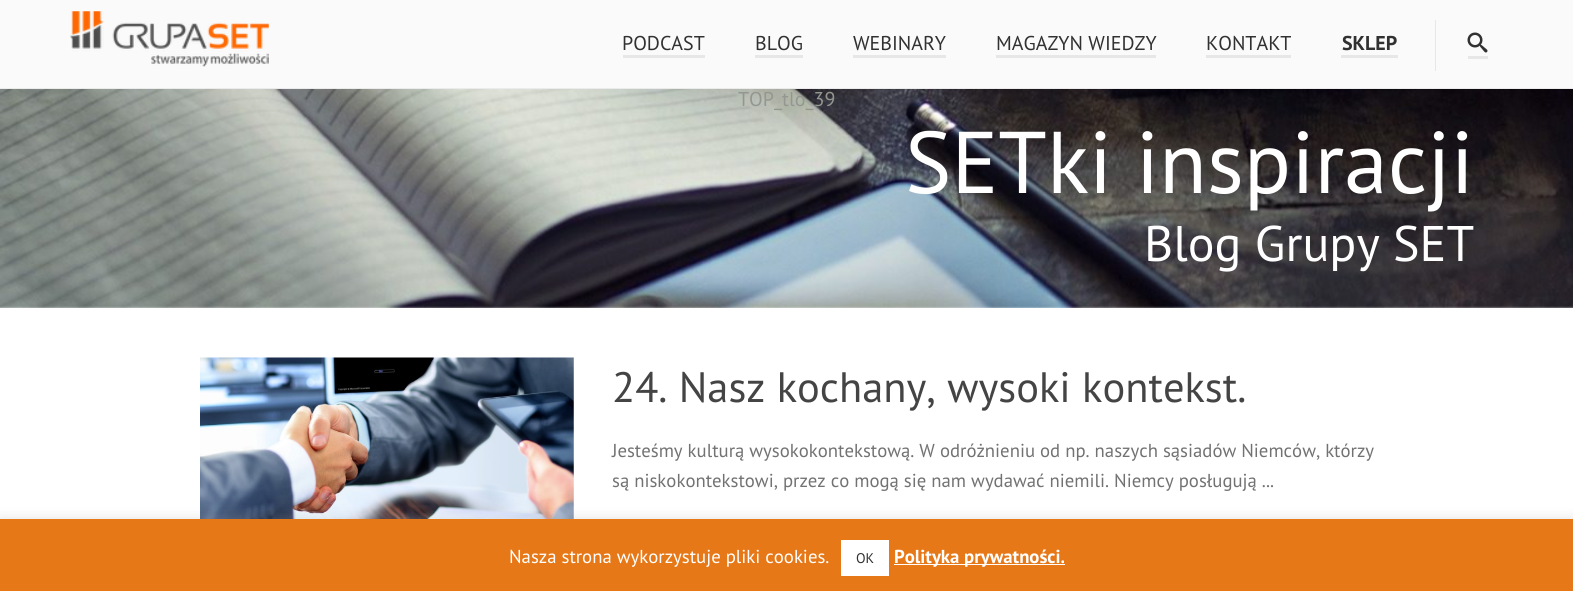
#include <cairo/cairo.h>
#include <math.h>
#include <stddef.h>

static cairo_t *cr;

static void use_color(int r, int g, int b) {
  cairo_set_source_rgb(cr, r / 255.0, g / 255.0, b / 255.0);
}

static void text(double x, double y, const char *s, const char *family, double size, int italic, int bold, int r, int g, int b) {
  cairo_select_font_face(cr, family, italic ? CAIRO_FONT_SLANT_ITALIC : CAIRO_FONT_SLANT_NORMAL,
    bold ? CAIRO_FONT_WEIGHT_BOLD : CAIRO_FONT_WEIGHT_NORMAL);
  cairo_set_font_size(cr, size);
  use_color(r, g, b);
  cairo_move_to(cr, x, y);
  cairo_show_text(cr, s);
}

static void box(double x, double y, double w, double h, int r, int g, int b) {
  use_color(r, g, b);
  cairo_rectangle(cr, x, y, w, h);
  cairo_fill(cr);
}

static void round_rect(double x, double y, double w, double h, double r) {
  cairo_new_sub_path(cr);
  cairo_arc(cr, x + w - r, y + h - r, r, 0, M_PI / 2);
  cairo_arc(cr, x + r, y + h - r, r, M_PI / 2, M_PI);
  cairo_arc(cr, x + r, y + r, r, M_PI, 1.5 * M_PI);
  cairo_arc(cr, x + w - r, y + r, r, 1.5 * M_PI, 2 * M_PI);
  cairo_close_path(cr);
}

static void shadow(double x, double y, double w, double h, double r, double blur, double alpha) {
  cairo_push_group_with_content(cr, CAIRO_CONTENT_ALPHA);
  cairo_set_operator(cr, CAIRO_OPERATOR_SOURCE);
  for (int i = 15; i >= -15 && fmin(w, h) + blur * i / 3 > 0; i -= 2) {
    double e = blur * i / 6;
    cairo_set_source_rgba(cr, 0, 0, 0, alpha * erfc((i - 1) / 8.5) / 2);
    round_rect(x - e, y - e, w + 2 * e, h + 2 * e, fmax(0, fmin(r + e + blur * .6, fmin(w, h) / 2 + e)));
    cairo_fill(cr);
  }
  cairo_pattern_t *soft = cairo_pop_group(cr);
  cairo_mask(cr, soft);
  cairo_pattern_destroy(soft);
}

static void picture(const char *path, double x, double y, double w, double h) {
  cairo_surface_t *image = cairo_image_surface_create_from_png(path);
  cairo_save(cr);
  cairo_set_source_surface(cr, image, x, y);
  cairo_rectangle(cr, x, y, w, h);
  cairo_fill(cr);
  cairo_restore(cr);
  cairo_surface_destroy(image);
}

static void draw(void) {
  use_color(255, 255, 255);
  cairo_paint(cr);
  box(0, 0, 1573, 88, 250, 250, 250);
  box(0, 88, 1573, 1, 235, 235, 235);
  picture("img_01.png", 70, 11, 199, 56);
  box(623, 55, 82, 3, 231, 231, 231);
  box(755, 55, 48, 3, 231, 231, 231);
  box(853, 55, 93, 3, 231, 231, 231);
  box(996, 55, 160, 3, 231, 231, 231);
  box(1206, 55, 85, 3, 231, 231, 231);
  box(1341, 55, 57, 3, 231, 231, 231);
  box(1435, 20, 1, 51, 231, 231, 231);
  box(1468, 56, 20, 3, 231, 231, 231);
  picture("img_02.png", 1467, 32, 21, 21);
  picture("img_03.png", 0, 89, 1573, 219);
  picture("img_04.png", 200, 357, 374, 162);
  use_color(172, 171, 171);
  shadow(0, 518, 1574, 72, 0, 6, 0.3);
  box(0, 519, 1573, 72, 231, 120, 23);
  box(841, 540, 48, 36, 255, 255, 255);
  box(894, 564, 171, 1, 255, 255, 255);
  text(622, 50, "PODCAST", "PT Sans", 20, 0, 0, 49, 49, 49);
  text(755, 50, "BLOG", "PT Sans", 20, 0, 0, 49, 49, 49);
  text(853, 50, "WEBINARY", "PT Sans", 20, 0, 0, 49, 49, 49);
  text(996, 50, "MAGAZYN WIEDZY", "PT Sans", 20, 0, 0, 49, 49, 49);
  text(1206, 50, "KONTAKT", "PT Sans", 20, 0, 0, 49, 49, 49);
  text(1342, 50, "SKLEP", "PT Sans", 20, 0, 1, 49, 49, 49);
  text(738, 106, "TOP_tlo_39", "PT Sans", 20, 0, 0, 147, 151, 144);
  text(905, 193, "SETki inspiracji", "PT Sans", 87.5, 0, 0, 255, 255, 255);
  text(1144, 261, "Blog Grupy SET", "PT Sans", 50, 0, 0, 255, 255, 255);
  text(612, 402, "24. Nasz kochany, wysoki kontekst.", "PT Sans", 42.5, 0, 0, 68, 68, 68);
  text(612, 457, "Jesteśmy kulturą wysokokontekstową. W odróżnieniu od np. naszych sąsiadów Niemców, którzy", "PT Sans", 18.75, 0, 0, 114, 114, 114);
  text(612, 487, "są niskokontekstowi, przez co mogą się nam wydawać niemili. Niemcy posługują ...", "PT Sans", 18.75, 0, 0, 114, 114, 114);
  text(509, 563, "Nasza strona wykorzystuje pliki cookies.", "PT Sans", 18.75, 0, 0, 255, 255, 255);
  text(856, 563, "OK", "PT Sans", 14, 0, 0, 49, 49, 49);
  text(894, 563, "Polityka prywatności.", "PT Sans", 18.75, 0, 1, 255, 255, 255);
}

int main(void) {
  cairo_surface_t *surface = cairo_image_surface_create(CAIRO_FORMAT_RGB24, 1573, 591);
  cr = cairo_create(surface);
  cairo_font_options_t *options = cairo_font_options_create();
  cairo_font_options_set_hint_metrics(options, CAIRO_HINT_METRICS_OFF);
  cairo_font_options_set_hint_style(options, CAIRO_HINT_STYLE_NONE);
  cairo_set_font_options(cr, options);
  cairo_set_miter_limit(cr, 4);
  draw();
  cairo_surface_write_to_png(surface, "out.png");
  cairo_font_options_destroy(options);
  cairo_destroy(cr);
  cairo_surface_destroy(surface);
  return 0;
}
